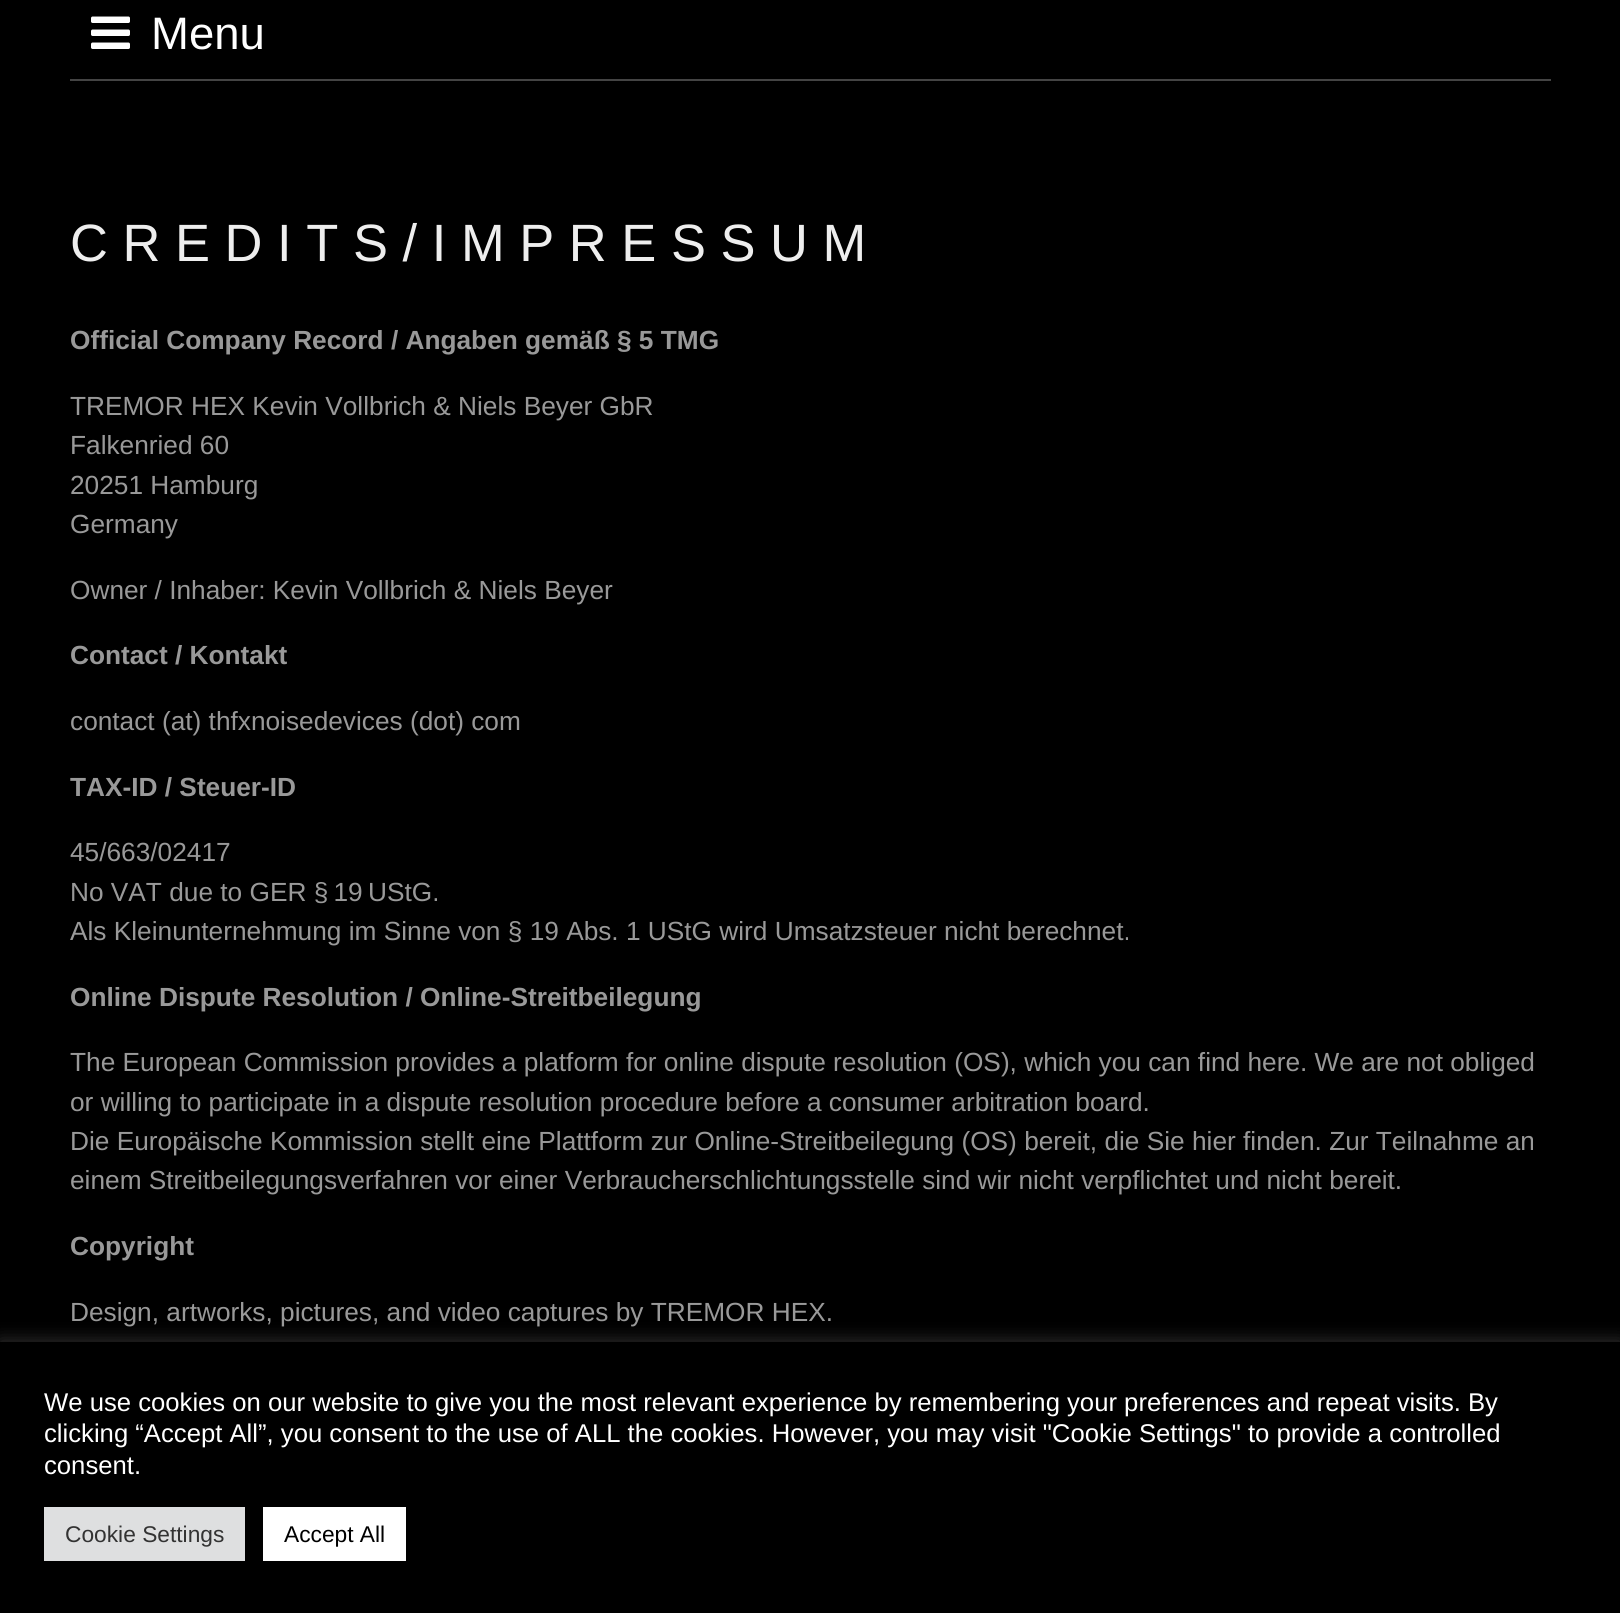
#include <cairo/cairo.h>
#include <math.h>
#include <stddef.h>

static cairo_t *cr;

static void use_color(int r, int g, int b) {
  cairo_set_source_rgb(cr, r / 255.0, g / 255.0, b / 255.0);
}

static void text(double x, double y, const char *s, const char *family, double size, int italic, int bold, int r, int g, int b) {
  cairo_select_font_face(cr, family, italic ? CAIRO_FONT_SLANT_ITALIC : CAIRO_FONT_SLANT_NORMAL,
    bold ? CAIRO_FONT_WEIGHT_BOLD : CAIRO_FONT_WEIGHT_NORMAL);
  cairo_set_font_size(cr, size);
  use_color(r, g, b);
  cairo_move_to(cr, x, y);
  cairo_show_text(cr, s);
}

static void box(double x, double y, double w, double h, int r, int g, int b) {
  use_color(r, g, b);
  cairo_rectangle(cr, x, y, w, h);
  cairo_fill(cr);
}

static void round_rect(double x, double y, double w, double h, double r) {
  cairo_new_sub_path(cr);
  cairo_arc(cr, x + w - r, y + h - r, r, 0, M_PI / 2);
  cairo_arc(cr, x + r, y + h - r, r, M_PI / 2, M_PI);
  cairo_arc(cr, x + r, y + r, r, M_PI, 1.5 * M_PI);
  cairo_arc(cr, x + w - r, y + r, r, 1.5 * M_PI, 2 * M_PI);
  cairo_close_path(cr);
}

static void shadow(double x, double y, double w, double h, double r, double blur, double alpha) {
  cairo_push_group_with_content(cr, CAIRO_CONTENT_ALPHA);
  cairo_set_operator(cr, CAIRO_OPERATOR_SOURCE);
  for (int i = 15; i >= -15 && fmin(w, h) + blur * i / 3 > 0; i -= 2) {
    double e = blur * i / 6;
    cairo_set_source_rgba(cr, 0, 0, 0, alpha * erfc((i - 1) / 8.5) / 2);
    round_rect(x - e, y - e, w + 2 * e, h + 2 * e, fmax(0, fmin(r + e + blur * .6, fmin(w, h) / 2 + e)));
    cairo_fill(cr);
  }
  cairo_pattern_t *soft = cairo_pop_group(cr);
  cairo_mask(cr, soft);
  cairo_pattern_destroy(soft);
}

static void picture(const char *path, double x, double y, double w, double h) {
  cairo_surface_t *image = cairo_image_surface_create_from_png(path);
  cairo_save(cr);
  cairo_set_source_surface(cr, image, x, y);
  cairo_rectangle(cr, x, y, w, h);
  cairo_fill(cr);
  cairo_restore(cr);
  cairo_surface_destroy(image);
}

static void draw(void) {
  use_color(0, 0, 0);
  cairo_paint(cr);
  box(70, 79, 1481, 2, 68, 68, 68);
  picture("img_01.png", 91, 16, 39, 33);
  use_color(172, 171, 171);
  shadow(0, 1341, 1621, 271, 0, 9, 0.3);
  box(0, 1342, 1620, 271, 0, 0, 0);
  box(44, 1507, 201, 54, 222, 223, 224);
  box(263, 1507, 143, 54, 255, 255, 255);
  text(151, 49, "Menu", "Liberation Sans", 45.5, 0, 0, 255, 255, 255);
  text(70, 261, "C R E D I T S / I M P R E S S U M", "Liberation Sans", 52.5, 0, 0, 238, 238, 238);
  text(70, 349, "Official Company Record / Angaben gemäß § 5 TMG", "Liberation Sans", 26.25, 0, 1, 153, 153, 153);
  text(70, 415, "TREMOR HEX Kevin Vollbrich & Niels Beyer GbR", "Liberation Sans", 26.25, 0, 0, 153, 153, 153);
  text(70, 454, "Falkenried 60", "Liberation Sans", 26.25, 0, 0, 153, 153, 153);
  text(70, 494, "20251 Hamburg", "Liberation Sans", 26.25, 0, 0, 153, 153, 153);
  text(70, 533, "Germany", "Liberation Sans", 26.25, 0, 0, 153, 153, 153);
  text(70, 599, "Owner / Inhaber: Kevin Vollbrich & Niels Beyer", "Liberation Sans", 26.25, 0, 0, 153, 153, 153);
  text(70, 664, "Contact / Kontakt", "Liberation Sans", 26.25, 0, 1, 153, 153, 153);
  text(70, 730, "contact (at) thfxnoisedevices (dot) com", "Liberation Sans", 26.25, 0, 0, 153, 153, 153);
  text(70, 796, "TAX-ID / Steuer-ID", "Liberation Sans", 26.25, 0, 1, 153, 153, 153);
  text(70, 861, "45/663/02417", "Liberation Sans", 26.25, 0, 0, 153, 153, 153);
  text(70, 901, "No VAT due to GER § 19 UStG.", "Liberation Sans", 26.25, 0, 0, 153, 153, 153);
  text(70, 940, "Als Kleinunternehmung im Sinne von § 19 Abs. 1 UStG wird Umsatzsteuer nicht berechnet.", "Liberation Sans", 26.25, 0, 0, 153, 153, 153);
  text(70, 1006, "Online Dispute Resolution / Online-Streitbeilegung", "Liberation Sans", 26.25, 0, 1, 153, 153, 153);
  text(70, 1071, "The European Commission provides a platform for online dispute resolution (OS), which you can find here. We are not obliged", "Liberation Sans", 26.25, 0, 0, 153, 153, 153);
  text(70, 1111, "or willing to participate in a dispute resolution procedure before a consumer arbitration board.", "Liberation Sans", 26.25, 0, 0, 153, 153, 153);
  text(70, 1150, "Die Europäische Kommission stellt eine Plattform zur Online-Streitbeilegung (OS) bereit, die Sie hier finden. Zur Teilnahme an", "Liberation Sans", 26.25, 0, 0, 153, 153, 153);
  text(70, 1189, "einem Streitbeilegungsverfahren vor einer Verbraucherschlichtungsstelle sind wir nicht verpflichtet und nicht bereit.", "Liberation Sans", 26.25, 0, 0, 153, 153, 153);
  text(70, 1255, "Copyright", "Liberation Sans", 26.25, 0, 1, 153, 153, 153);
  text(70, 1321, "Design, artworks, pictures, and video captures by TREMOR HEX.", "Liberation Sans", 26.25, 0, 0, 153, 153, 153);
  text(44, 1411, "We use cookies on our website to give you the most relevant experience by remembering your preferences and repeat visits. By", "Liberation Sans", 25.67, 0, 0, 255, 255, 255);
  text(44, 1442, "clicking “Accept All”, you consent to the use of ALL the cookies. However, you may visit \"Cookie Settings\" to provide a controlled", "Liberation Sans", 25.67, 0, 0, 255, 255, 255);
  text(44, 1474, "consent.", "Liberation Sans", 25.67, 0, 0, 255, 255, 255);
  text(65, 1542, "Cookie Settings", "Liberation Sans", 22.75, 0, 0, 51, 51, 51);
  text(284, 1542, "Accept All", "Liberation Sans", 22.75, 0, 0, 0, 0, 0);
}

int main(void) {
  cairo_surface_t *surface = cairo_image_surface_create(CAIRO_FORMAT_RGB24, 1620, 1613);
  cr = cairo_create(surface);
  cairo_font_options_t *options = cairo_font_options_create();
  cairo_font_options_set_hint_metrics(options, CAIRO_HINT_METRICS_OFF);
  cairo_font_options_set_hint_style(options, CAIRO_HINT_STYLE_NONE);
  cairo_set_font_options(cr, options);
  cairo_set_miter_limit(cr, 4);
  draw();
  cairo_surface_write_to_png(surface, "out.png");
  cairo_font_options_destroy(options);
  cairo_destroy(cr);
  cairo_surface_destroy(surface);
  return 0;
}
